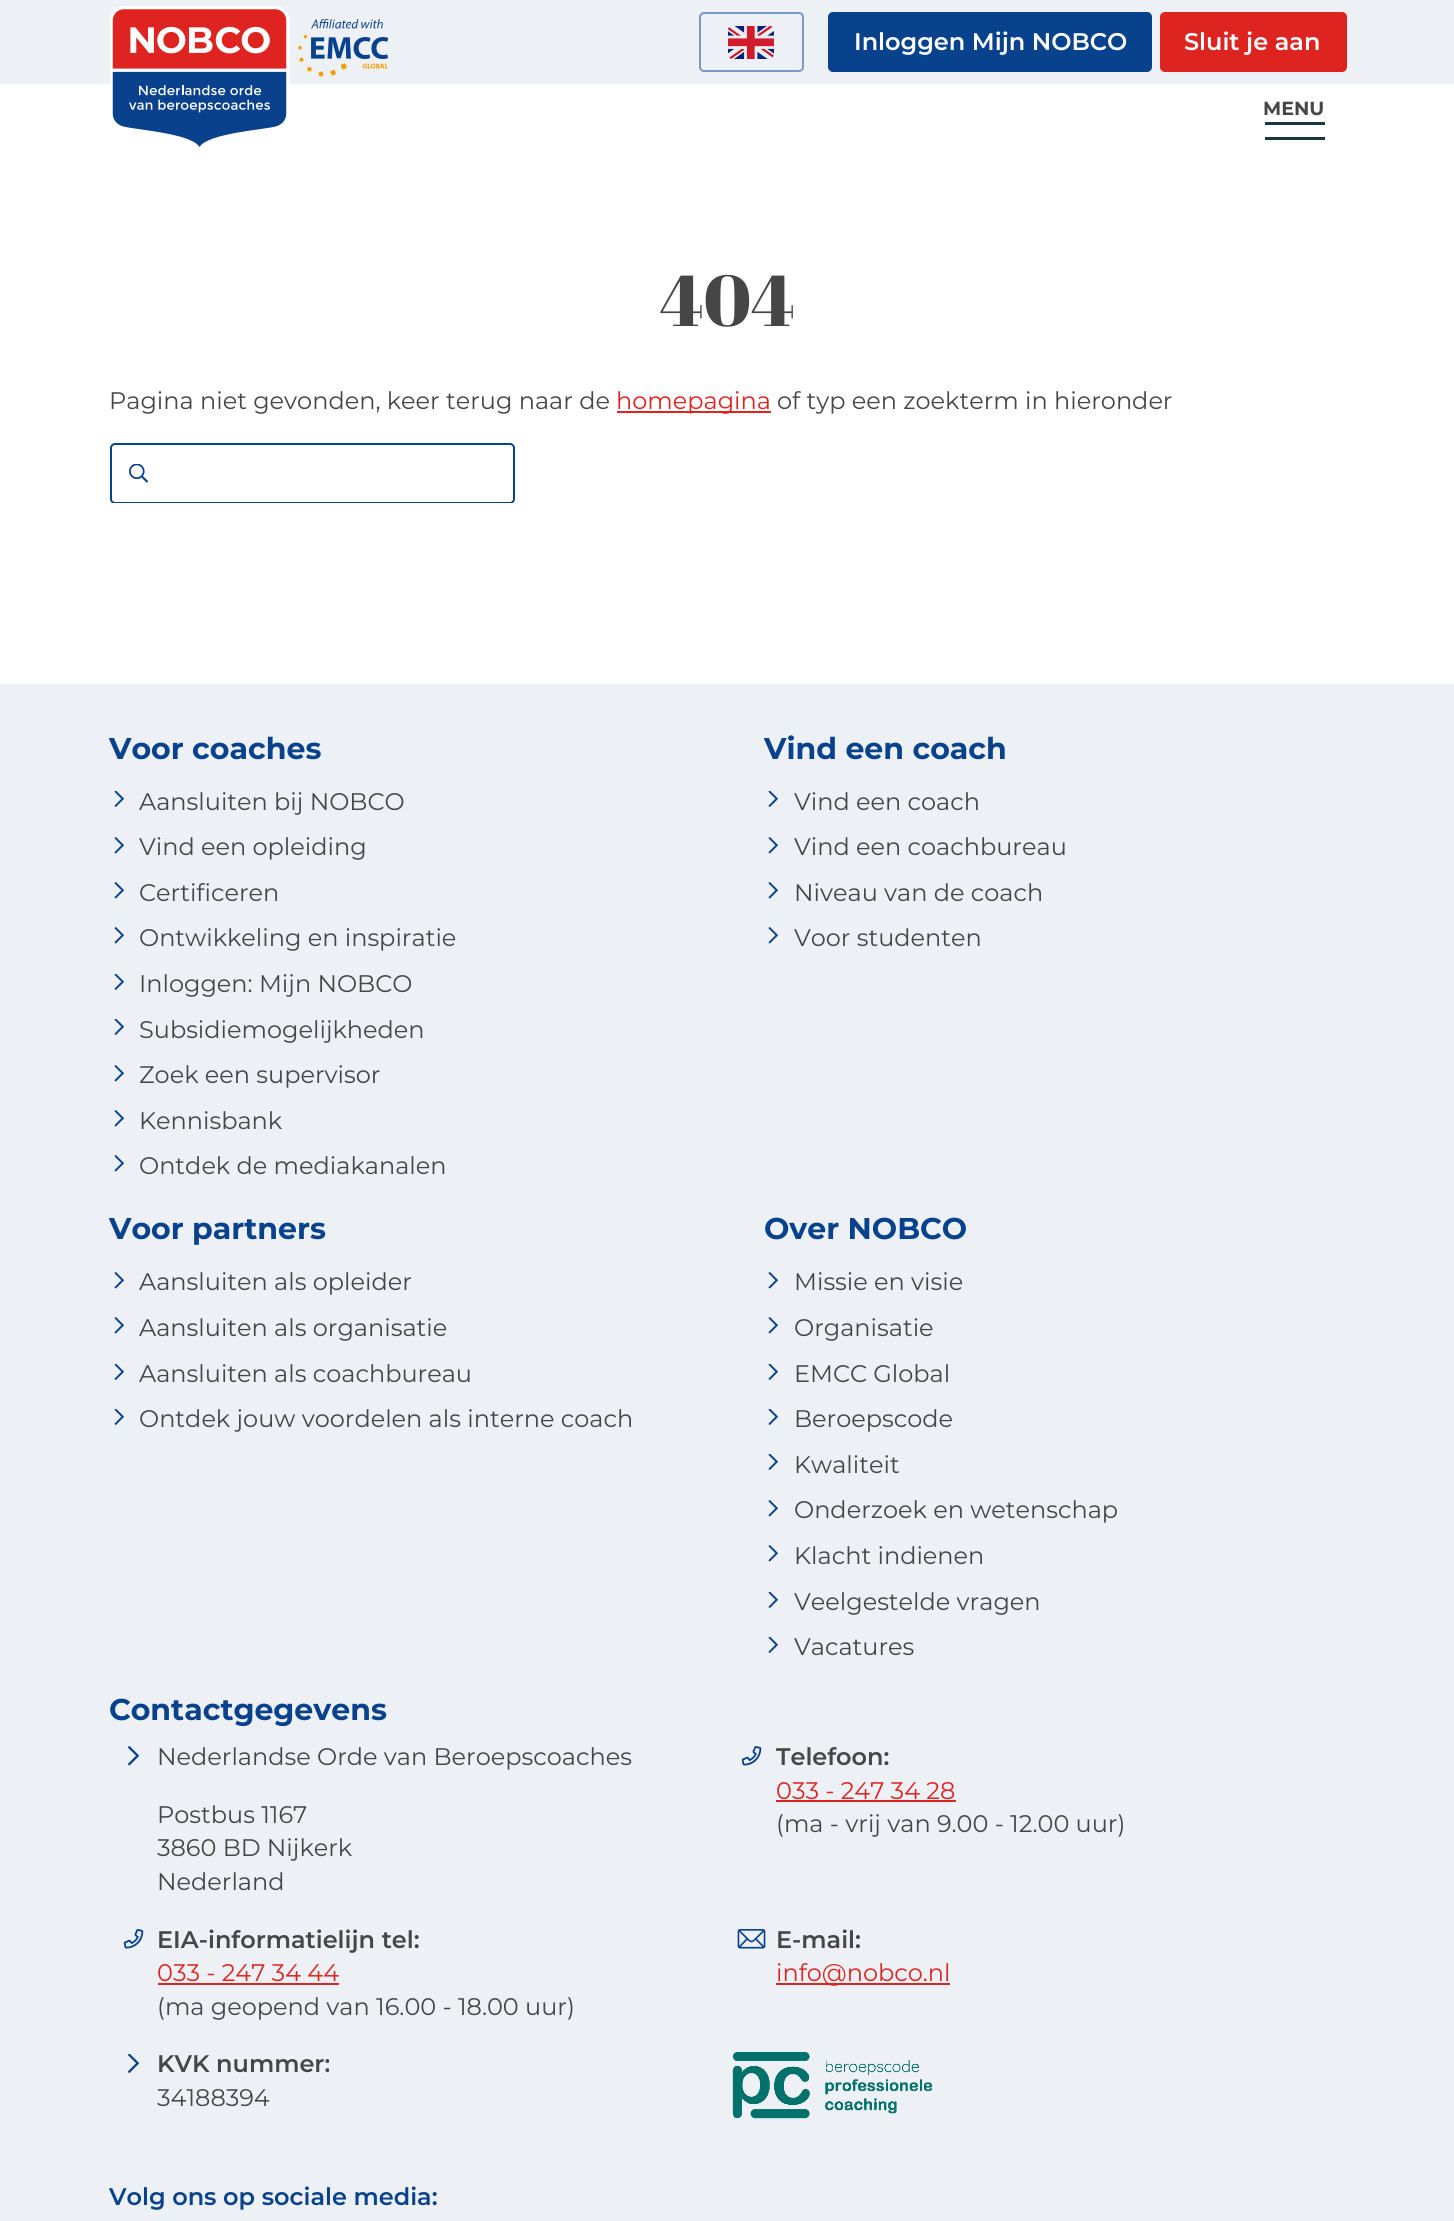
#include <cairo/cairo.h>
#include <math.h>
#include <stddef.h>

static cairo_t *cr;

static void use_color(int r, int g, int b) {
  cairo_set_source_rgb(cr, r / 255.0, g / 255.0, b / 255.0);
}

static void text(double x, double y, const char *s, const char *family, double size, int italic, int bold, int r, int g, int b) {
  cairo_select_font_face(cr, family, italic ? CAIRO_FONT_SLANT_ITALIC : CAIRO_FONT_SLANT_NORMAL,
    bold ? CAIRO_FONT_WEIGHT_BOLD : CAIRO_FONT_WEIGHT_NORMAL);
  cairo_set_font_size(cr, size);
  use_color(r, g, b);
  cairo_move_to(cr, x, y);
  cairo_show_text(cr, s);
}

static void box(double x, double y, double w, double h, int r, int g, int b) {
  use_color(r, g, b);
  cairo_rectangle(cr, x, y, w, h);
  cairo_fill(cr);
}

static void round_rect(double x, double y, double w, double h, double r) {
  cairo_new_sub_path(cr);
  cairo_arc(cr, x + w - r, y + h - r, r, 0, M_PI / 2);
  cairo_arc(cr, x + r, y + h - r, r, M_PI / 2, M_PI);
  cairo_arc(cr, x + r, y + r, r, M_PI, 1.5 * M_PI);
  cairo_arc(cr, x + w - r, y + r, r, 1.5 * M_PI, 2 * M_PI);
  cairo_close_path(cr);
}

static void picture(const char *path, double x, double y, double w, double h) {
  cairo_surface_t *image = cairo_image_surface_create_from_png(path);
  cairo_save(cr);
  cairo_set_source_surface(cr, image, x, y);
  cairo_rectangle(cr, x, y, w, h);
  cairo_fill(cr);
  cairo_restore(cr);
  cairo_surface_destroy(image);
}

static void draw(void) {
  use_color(255, 255, 255);
  cairo_paint(cr);
  box(0, 0, 1454, 84, 237, 240, 245);
  round_rect(700, 13, 103, 58, 4);
  use_color(123, 153, 193);
  cairo_stroke(cr);
  picture("img_01.png", 728, 26, 46, 33);
  use_color(8, 66, 140);
  round_rect(828, 12, 324, 60, 5);
  cairo_fill(cr);
  use_color(222, 36, 33);
  round_rect(1160, 12, 187, 60, 5);
  cairo_fill(cr);
  picture("img_02.png", 110, 6, 180, 141);
  picture("img_03.png", 298, 19, 91, 58);
  box(1265, 122, 60, 3, 25, 54, 65);
  box(1265, 137, 60, 3, 25, 54, 65);
  box(617, 411, 154, 2, 222, 36, 33);
  round_rect(111, 444, 403, 59, 4);
  use_color(8, 66, 140);
  cairo_stroke(cr);
  picture("img_04.png", 129, 464, 20, 19);
  box(0, 684, 1454, 1537, 237, 240, 245);
  box(112, 503, 401, 1, 255, 255, 255);
  picture("img_05.png", 114, 791, 10, 16);
  picture("img_06.png", 114, 837, 10, 17);
  picture("img_06.png", 114, 882, 10, 17);
  picture("img_06.png", 114, 927, 10, 17);
  picture("img_05.png", 114, 974, 10, 16);
  picture("img_05.png", 114, 1019, 10, 16);
  picture("img_06.png", 114, 1065, 10, 17);
  picture("img_06.png", 114, 1110, 10, 17);
  picture("img_06.png", 114, 1155, 10, 17);
  picture("img_05.png", 768, 791, 10, 16);
  picture("img_06.png", 768, 837, 10, 17);
  picture("img_06.png", 768, 882, 10, 17);
  picture("img_06.png", 768, 927, 10, 17);
  picture("img_06.png", 114, 1272, 10, 17);
  picture("img_06.png", 114, 1317, 10, 17);
  picture("img_05.png", 114, 1364, 10, 16);
  picture("img_05.png", 114, 1409, 10, 16);
  picture("img_06.png", 768, 1272, 10, 17);
  picture("img_06.png", 768, 1317, 10, 17);
  picture("img_05.png", 768, 1364, 10, 16);
  picture("img_05.png", 768, 1409, 10, 16);
  picture("img_05.png", 768, 1454, 10, 16);
  picture("img_06.png", 768, 1500, 10, 17);
  picture("img_06.png", 768, 1545, 10, 17);
  picture("img_05.png", 768, 1592, 10, 16);
  picture("img_05.png", 768, 1637, 10, 16);
  picture("img_07.png", 128, 1746, 11, 20);
  picture("img_08.png", 741, 1746, 21, 20);
  box(776, 1800, 180, 2, 222, 36, 33);
  picture("img_08.png", 123, 1929, 21, 20);
  box(158, 1983, 181, 2, 222, 36, 33);
  picture("img_09.png", 737, 1929, 29, 20);
  box(776, 1983, 174, 2, 222, 36, 33);
  picture("img_10.png", 128, 2054, 11, 19);
  picture("img_11.png", 732, 2052, 201, 67);
  text(854, 50, "Inloggen Mijn NOBCO", "Montserrat SemiBold", 24, 0, 0, 255, 255, 255);
  text(1184, 50, "Sluit je aan", "Montserrat SemiBold", 24, 0, 0, 255, 255, 255);
  text(1263, 115, "MENU", "Montserrat", 19, 0, 1, 70, 70, 70);
  text(660, 326, "404", "Abril Fatface", 72, 0, 0, 70, 70, 70);
  text(109, 409, "Pagina niet gevonden, keer terug naar de", "Montserrat", 24, 0, 0, 70, 70, 70);
  text(616, 409, "homepagina", "Montserrat", 24, 0, 0, 222, 36, 33);
  text(777, 409, "of typ een zoekterm in hieronder", "Montserrat", 24, 0, 0, 70, 70, 70);
  text(109, 759, "Voor coaches", "Montserrat", 30, 0, 1, 8, 66, 140);
  text(139, 810, "Aansluiten bij NOBCO", "Montserrat", 24, 0, 0, 70, 70, 70);
  text(139, 855, "Vind een opleiding", "Montserrat", 24, 0, 0, 70, 70, 70);
  text(139, 901, "Certificeren", "Montserrat", 24, 0, 0, 70, 70, 70);
  text(139, 946, "Ontwikkeling en inspiratie", "Montserrat", 24, 0, 0, 70, 70, 70);
  text(139, 992, "Inloggen: Mijn NOBCO", "Montserrat", 24, 0, 0, 70, 70, 70);
  text(139, 1038, "Subsidiemogelijkheden", "Montserrat", 24, 0, 0, 70, 70, 70);
  text(139, 1083, "Zoek een supervisor", "Montserrat", 24, 0, 0, 70, 70, 70);
  text(139, 1129, "Kennisbank", "Montserrat", 24, 0, 0, 70, 70, 70);
  text(139, 1174, "Ontdek de mediakanalen", "Montserrat", 24, 0, 0, 70, 70, 70);
  text(764, 759, "Vind een coach", "Montserrat", 30, 0, 1, 8, 66, 140);
  text(794, 810, "Vind een coach", "Montserrat", 24, 0, 0, 70, 70, 70);
  text(794, 855, "Vind een coachbureau", "Montserrat", 24, 0, 0, 70, 70, 70);
  text(794, 901, "Niveau van de coach", "Montserrat", 24, 0, 0, 70, 70, 70);
  text(794, 946, "Voor studenten", "Montserrat", 24, 0, 0, 70, 70, 70);
  text(109, 1239, "Voor partners", "Montserrat", 30, 0, 1, 8, 66, 140);
  text(139, 1290, "Aansluiten als opleider", "Montserrat", 24, 0, 0, 70, 70, 70);
  text(139, 1336, "Aansluiten als organisatie", "Montserrat", 24, 0, 0, 70, 70, 70);
  text(139, 1382, "Aansluiten als coachbureau", "Montserrat", 24, 0, 0, 70, 70, 70);
  text(139, 1427, "Ontdek jouw voordelen als interne coach", "Montserrat", 24, 0, 0, 70, 70, 70);
  text(764, 1239, "Over NOBCO", "Montserrat", 30, 0, 1, 8, 66, 140);
  text(794, 1290, "Missie en visie", "Montserrat", 24, 0, 0, 70, 70, 70);
  text(794, 1336, "Organisatie", "Montserrat", 24, 0, 0, 70, 70, 70);
  text(794, 1382, "EMCC Global", "Montserrat", 24, 0, 0, 70, 70, 70);
  text(794, 1427, "Beroepscode", "Montserrat", 24, 0, 0, 70, 70, 70);
  text(794, 1473, "Kwaliteit", "Montserrat", 24, 0, 0, 70, 70, 70);
  text(794, 1518, "Onderzoek en wetenschap", "Montserrat", 24, 0, 0, 70, 70, 70);
  text(794, 1564, "Klacht indienen", "Montserrat", 24, 0, 0, 70, 70, 70);
  text(794, 1610, "Veelgestelde vragen", "Montserrat", 24, 0, 0, 70, 70, 70);
  text(794, 1655, "Vacatures", "Montserrat", 24, 0, 0, 70, 70, 70);
  text(109, 1720, "Contactgegevens", "Montserrat", 30, 0, 1, 8, 66, 140);
  text(157, 1765, "Nederlandse Orde van Beroepscoaches", "Montserrat", 24, 0, 0, 70, 70, 70);
  text(157, 1823, "Postbus 1167", "Montserrat", 24, 0, 0, 70, 70, 70);
  text(157, 1856, "3860 BD Nijkerk", "Montserrat", 24, 0, 0, 70, 70, 70);
  text(157, 1890, "Nederland", "Montserrat", 24, 0, 0, 70, 70, 70);
  text(776, 1765, "Telefoon:", "Montserrat SemiBold", 24, 0, 0, 70, 70, 70);
  text(776, 1799, "033 - 247 34 28", "Montserrat", 24, 0, 0, 222, 36, 33);
  text(776, 1832, "(ma - vrij van 9.00 - 12.00 uur)", "Montserrat", 24, 0, 0, 70, 70, 70);
  text(157, 1948, "EIA-informatielijn tel:", "Montserrat SemiBold", 24, 0, 0, 70, 70, 70);
  text(157, 1981, "033 - 247 34 44", "Montserrat", 24, 0, 0, 222, 36, 33);
  text(157, 2015, "(ma geopend van 16.00 - 18.00 uur)", "Montserrat", 24, 0, 0, 70, 70, 70);
  text(776, 1948, "E-mail:", "Montserrat SemiBold", 24, 0, 0, 70, 70, 70);
  text(776, 1981, "info@nobco.nl", "Montserrat", 24, 0, 0, 222, 36, 33);
  text(157, 2072, "KVK nummer:", "Montserrat SemiBold", 24, 0, 0, 70, 70, 70);
  text(157, 2106, "34188394", "Montserrat", 24, 0, 0, 70, 70, 70);
  text(109, 2205, "Volg ons op sociale media:", "Montserrat SemiBold", 24, 0, 0, 8, 66, 140);
}

int main(void) {
  cairo_surface_t *surface = cairo_image_surface_create(CAIRO_FORMAT_RGB24, 1454, 2221);
  cr = cairo_create(surface);
  cairo_font_options_t *options = cairo_font_options_create();
  cairo_font_options_set_hint_metrics(options, CAIRO_HINT_METRICS_OFF);
  cairo_font_options_set_hint_style(options, CAIRO_HINT_STYLE_NONE);
  cairo_set_font_options(cr, options);
  cairo_set_miter_limit(cr, 4);
  draw();
  cairo_surface_write_to_png(surface, "out.png");
  cairo_font_options_destroy(options);
  cairo_destroy(cr);
  cairo_surface_destroy(surface);
  return 0;
}
